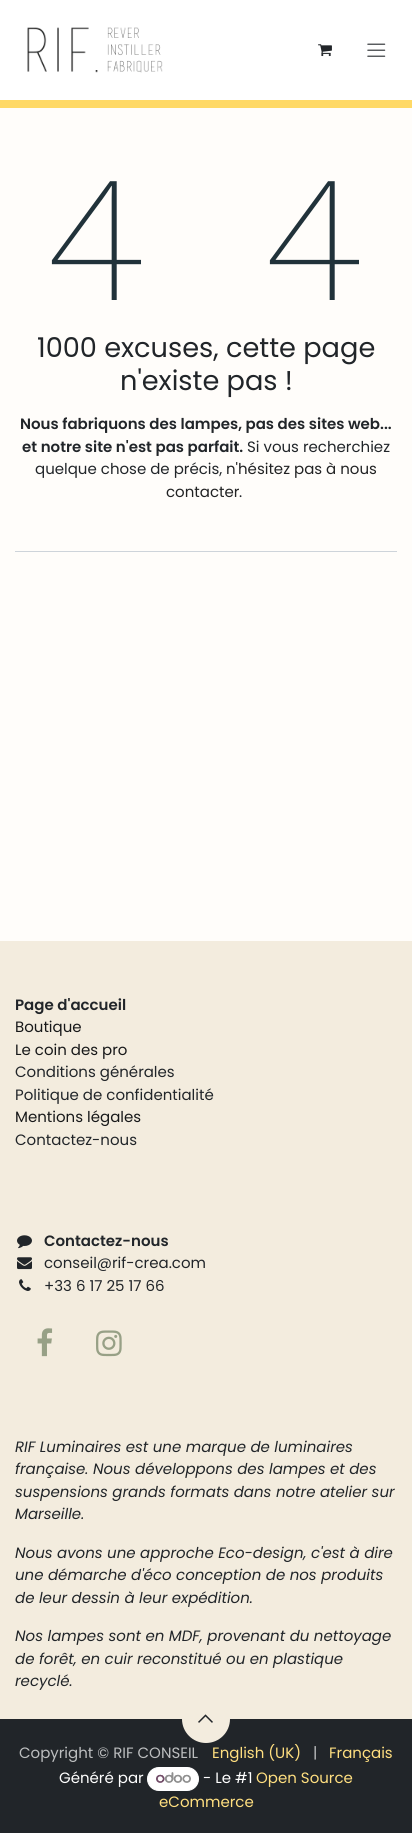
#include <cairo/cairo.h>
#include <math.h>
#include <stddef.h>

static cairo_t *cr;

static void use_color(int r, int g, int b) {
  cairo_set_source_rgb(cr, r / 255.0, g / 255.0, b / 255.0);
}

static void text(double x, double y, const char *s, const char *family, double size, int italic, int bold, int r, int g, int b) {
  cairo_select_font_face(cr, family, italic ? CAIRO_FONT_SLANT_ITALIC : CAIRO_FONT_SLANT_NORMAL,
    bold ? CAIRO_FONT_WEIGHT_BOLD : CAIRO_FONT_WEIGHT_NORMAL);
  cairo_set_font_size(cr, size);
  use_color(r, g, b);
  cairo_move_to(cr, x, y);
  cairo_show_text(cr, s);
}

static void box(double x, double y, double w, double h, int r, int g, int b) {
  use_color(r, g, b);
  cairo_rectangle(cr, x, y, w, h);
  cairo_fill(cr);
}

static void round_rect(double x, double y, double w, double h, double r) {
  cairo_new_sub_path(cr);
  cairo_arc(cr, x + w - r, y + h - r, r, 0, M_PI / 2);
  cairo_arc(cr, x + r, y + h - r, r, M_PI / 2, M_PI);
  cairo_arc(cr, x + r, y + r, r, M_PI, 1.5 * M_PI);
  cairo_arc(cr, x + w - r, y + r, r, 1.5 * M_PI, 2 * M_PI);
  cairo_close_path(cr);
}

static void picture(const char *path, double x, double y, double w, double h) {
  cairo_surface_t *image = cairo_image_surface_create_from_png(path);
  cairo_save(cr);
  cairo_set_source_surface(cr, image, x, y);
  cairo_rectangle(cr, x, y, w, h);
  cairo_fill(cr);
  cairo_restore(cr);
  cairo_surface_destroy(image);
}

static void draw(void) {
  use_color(255, 253, 250);
  cairo_paint(cr);
  box(0, 100, 412, 8, 255, 217, 102);
  box(0, 0, 412, 100, 255, 255, 255);
  picture("img_01.png", 27, 27, 136, 46);
  picture("img_02.png", 318, 44, 14, 13);
  picture("img_03.png", 367, 43, 19, 14);
  picture("img_04.png", 51, 181, 308, 119);
  box(15, 551, 382, 1, 206, 212, 218);
  box(0, 941, 412, 778, 243, 236, 222);
  picture("img_05.png", 17, 1235, 15, 14);
  picture("img_06.png", 17, 1257, 15, 13);
  picture("img_07.png", 19, 1279, 12, 12);
  picture("img_08.png", 37, 1328, 16, 29);
  picture("img_09.png", 96, 1330, 26, 27);
  box(0, 1719, 412, 114, 33, 37, 41);
  use_color(243, 236, 222);
  cairo_arc(cr, 206, 1719, 24, 0, 2 * M_PI);
  cairo_fill(cr);
  picture("img_10.png", 198, 1714, 15, 9);
  use_color(255, 255, 255);
  round_rect(147.5, 1767.5, 51, 23, 11.5);
  cairo_fill_preserve(cr);
  cairo_set_line_width(cr, 1);
  cairo_stroke(cr);
  picture("img_11.png", 156, 1772, 35, 11);
  text(37, 357, "1000 excuses, cette page", "Poppins", 27.2, 0, 0, 33, 37, 41);
  text(120, 390, "n'existe pas !", "Poppins", 27.2, 0, 0, 33, 37, 41);
  text(20, 429, "Nous fabriquons des lampes, pas des sites web...", "Poppins SemiBold", 15, 0, 0, 33, 37, 41);
  text(22, 452, "et notre site n'est pas parfait.", "Poppins SemiBold", 15, 0, 0, 33, 37, 41);
  text(247, 452, "Si vous recherchiez", "Poppins", 15, 0, 0, 33, 37, 41);
  text(35, 474, "quelque chose de précis,", "Poppins", 15, 0, 0, 33, 37, 41);
  text(226, 474, "n'hésitez pas à nous", "Poppins", 15, 0, 0, 33, 34, 35);
  text(166, 497, "contacter", "Poppins", 15, 0, 0, 33, 34, 35);
  text(239, 497, ".", "Poppins", 15, 0, 0, 33, 37, 41);
  text(15, 1010, "Page d'accueil", "Poppins SemiBold", 15, 0, 0, 33, 37, 41);
  text(15, 1032, "Boutique", "Poppins", 15, 0, 0, 23, 24, 25);
  text(15, 1055, "Le coin des pro", "Poppins", 15, 0, 0, 23, 24, 25);
  text(15, 1077, "Conditions générales", "Poppins", 15, 0, 0, 33, 37, 41);
  text(15, 1100, "Politique de confidentialité", "Poppins", 15, 0, 0, 33, 37, 41);
  text(15, 1122, "Mentions légales", "Poppins", 15, 0, 0, 23, 24, 25);
  text(15, 1145, "Contactez-nous", "Poppins", 15, 0, 0, 33, 37, 41);
  text(44, 1246, "Contactez-nous", "Poppins SemiBold", 15, 0, 0, 33, 37, 41);
  text(44, 1268, "conseil@rif-crea.com", "Poppins", 15, 0, 0, 33, 37, 41);
  text(44, 1291, "+33 6 17 25 17 66", "Poppins", 15, 0, 0, 33, 37, 41);
  text(15, 1452, "RIF Luminaires est une marque de luminaires", "Poppins", 15, 1, 0, 33, 37, 41);
  text(15, 1474, "française. Nous développons des lampes et des", "Poppins", 15, 1, 0, 33, 37, 41);
  text(15, 1497, "suspensions grands formats dans notre atelier sur", "Poppins", 15, 1, 0, 33, 37, 41);
  text(15, 1519, "Marseille.", "Poppins", 15, 1, 0, 33, 37, 41);
  text(15, 1558, "Nous avons une approche Eco-design, c'est à dire", "Poppins", 15, 1, 0, 33, 37, 41);
  text(15, 1580, "une démarche d'éco conception de nos produits", "Poppins", 15, 1, 0, 33, 37, 41);
  text(15, 1603, "de leur dessin à leur expédition.", "Poppins", 15, 1, 0, 33, 37, 41);
  text(15, 1641, "Nos lampes sont en MDF, provenant du nettoyage", "Poppins", 15, 1, 0, 33, 37, 41);
  text(15, 1664, "de forêt, en cuir reconstitué ou en plastique", "Poppins", 15, 1, 0, 33, 37, 41);
  text(15, 1686, "recyclé.", "Poppins", 15, 1, 0, 33, 37, 41);
  text(19, 1758, "Copyright © RIF CONSEIL", "Poppins", 15, 0, 0, 188, 190, 191);
  text(212, 1758, "English (UK)", "Poppins", 15, 0, 0, 255, 223, 128);
  text(313, 1758, "|", "Poppins", 15, 0, 0, 188, 190, 191);
  text(329, 1758, "Français", "Poppins", 15, 0, 0, 255, 223, 128);
  text(59, 1783, "Généré par", "Poppins", 15, 0, 0, 255, 255, 255);
  text(203, 1783, "- Le #1", "Poppins", 15, 0, 0, 255, 255, 255);
  text(256, 1783, "Open Source", "Poppins", 15, 0, 0, 255, 223, 128);
  text(159, 1807, "eCommerce", "Poppins", 15, 0, 0, 255, 223, 128);
}

int main(void) {
  cairo_surface_t *surface = cairo_image_surface_create(CAIRO_FORMAT_RGB24, 412, 1833);
  cr = cairo_create(surface);
  cairo_font_options_t *options = cairo_font_options_create();
  cairo_font_options_set_hint_metrics(options, CAIRO_HINT_METRICS_OFF);
  cairo_font_options_set_hint_style(options, CAIRO_HINT_STYLE_NONE);
  cairo_set_font_options(cr, options);
  cairo_set_miter_limit(cr, 4);
  draw();
  cairo_surface_write_to_png(surface, "out.png");
  cairo_font_options_destroy(options);
  cairo_destroy(cr);
  cairo_surface_destroy(surface);
  return 0;
}
